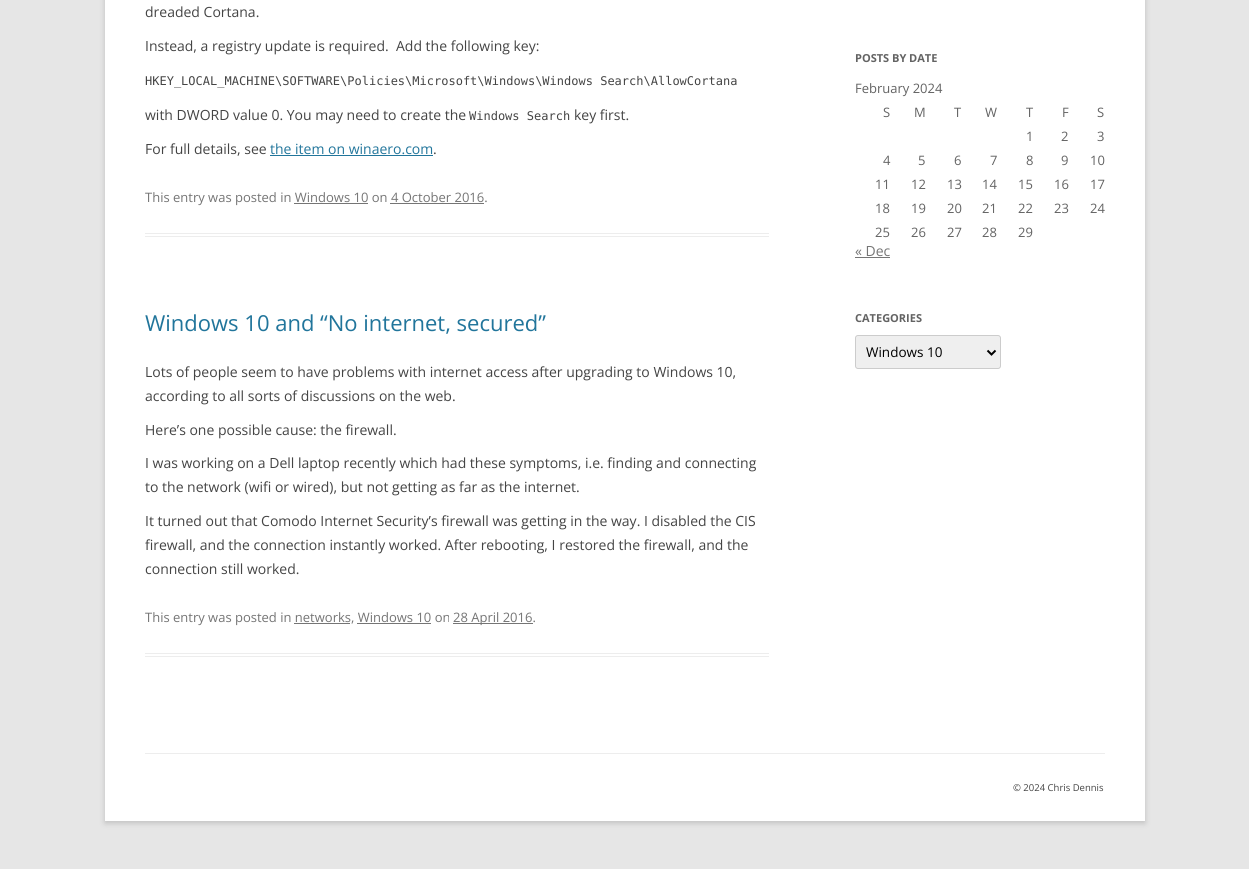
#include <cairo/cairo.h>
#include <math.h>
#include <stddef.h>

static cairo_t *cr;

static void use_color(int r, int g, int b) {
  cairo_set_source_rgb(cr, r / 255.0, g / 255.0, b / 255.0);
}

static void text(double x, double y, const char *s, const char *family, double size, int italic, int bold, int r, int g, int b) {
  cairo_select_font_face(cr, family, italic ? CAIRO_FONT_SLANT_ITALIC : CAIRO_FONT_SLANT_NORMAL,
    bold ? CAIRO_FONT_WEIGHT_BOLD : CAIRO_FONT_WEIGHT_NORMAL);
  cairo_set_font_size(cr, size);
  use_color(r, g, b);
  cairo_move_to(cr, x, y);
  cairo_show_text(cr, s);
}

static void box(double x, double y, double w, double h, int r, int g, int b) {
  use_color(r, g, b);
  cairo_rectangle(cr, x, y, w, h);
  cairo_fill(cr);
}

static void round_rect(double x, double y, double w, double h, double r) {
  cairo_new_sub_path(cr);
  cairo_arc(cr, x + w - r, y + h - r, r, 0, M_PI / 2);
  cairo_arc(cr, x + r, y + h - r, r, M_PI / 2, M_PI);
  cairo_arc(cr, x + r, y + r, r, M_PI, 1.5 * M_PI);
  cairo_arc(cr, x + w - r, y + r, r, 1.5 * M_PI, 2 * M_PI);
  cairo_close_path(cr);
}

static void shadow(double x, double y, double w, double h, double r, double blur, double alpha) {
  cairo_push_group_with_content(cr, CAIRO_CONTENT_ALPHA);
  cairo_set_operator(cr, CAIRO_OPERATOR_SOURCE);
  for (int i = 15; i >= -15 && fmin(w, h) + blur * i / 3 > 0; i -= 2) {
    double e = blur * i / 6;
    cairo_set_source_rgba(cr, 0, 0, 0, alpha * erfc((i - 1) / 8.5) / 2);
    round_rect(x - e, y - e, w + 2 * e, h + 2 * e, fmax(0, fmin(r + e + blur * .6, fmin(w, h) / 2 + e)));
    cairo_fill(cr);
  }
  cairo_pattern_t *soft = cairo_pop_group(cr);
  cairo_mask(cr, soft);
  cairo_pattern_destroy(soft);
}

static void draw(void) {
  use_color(230, 230, 230);
  cairo_paint(cr);
  use_color(100, 100, 100);
  shadow(105, -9, 1040, 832, 0, 3, 0.3);
  box(105, 0, 1040, 821, 255, 255, 255);
  box(145, 233, 624, 1, 237, 237, 237);
  box(145, 236, 624, 1, 237, 237, 237);
  box(270, 155, 163, 1, 33, 117, 155);
  box(294, 203, 74, 1, 117, 117, 117);
  box(390, 203, 94, 1, 117, 117, 117);
  box(145, 653, 624, 1, 237, 237, 237);
  box(145, 656, 624, 1, 237, 237, 237);
  box(453, 623, 80, 1, 117, 117, 117);
  box(294, 623, 56, 1, 117, 117, 117);
  box(357, 623, 74, 1, 117, 117, 117);
  box(855, 257, 35, 1, 117, 117, 117);
  use_color(239, 239, 239);
  round_rect(855.5, 335.5, 145, 33, 2.5);
  cairo_fill_preserve(cr);
  use_color(204, 204, 204);
  cairo_set_line_width(cr, 1);
  cairo_stroke(cr);
  cairo_new_path(cr);
  cairo_move_to(cr, 987.5, 350.5);
  cairo_line_to(cr, 991.5, 354.5);
  cairo_line_to(cr, 995.5, 350.5);
  use_color(0, 0, 0);
  cairo_set_line_width(cr, 2);
  cairo_stroke(cr);
  box(145, 753, 960, 1, 237, 237, 237);
  text(145, 17, "dreaded Cortana.", "Open Sans", 14, 0, 0, 68, 68, 68);
  text(145, 51, "Instead, a registry update is required.  Add the following key:", "Open Sans", 14, 0, 0, 68, 68, 68);
  text(145, 85, "HKEY_LOCAL_MACHINE\\SOFTWARE\\Policies\\Microsoft\\Windows\\Windows Search\\AllowCortana", "DejaVu Sans Mono", 12, 0, 0, 68, 68, 68);
  text(145, 120, "with DWORD value 0. You may need to create the", "Open Sans", 14, 0, 0, 68, 68, 68);
  text(469, 120, "Windows Search", "DejaVu Sans Mono", 12, 0, 0, 68, 68, 68);
  text(574, 120, "key first.", "Open Sans", 14, 0, 0, 68, 68, 68);
  text(145, 154, "For full details, see", "Open Sans", 14, 0, 0, 68, 68, 68);
  text(270, 154, "the item on winaero.com", "Open Sans", 14, 0, 0, 33, 117, 155);
  text(433, 154, ".", "Open Sans", 14, 0, 0, 68, 68, 68);
  text(145, 202, "This entry was posted in Windows 10 on 4 October 2016.", "Open Sans", 13, 0, 0, 117, 117, 117);
  text(145, 331, "Windows 10 and “No internet, secured”", "Open Sans", 22, 0, 0, 33, 117, 155);
  text(145, 377, "Lots of people seem to have problems with internet access after upgrading to Windows 10,", "Open Sans", 14, 0, 0, 68, 68, 68);
  text(145, 401, "according to all sorts of discussions on the web.", "Open Sans", 14, 0, 0, 68, 68, 68);
  text(145, 435, "Here’s one possible cause: the firewall.", "Open Sans", 14, 0, 0, 68, 68, 68);
  text(145, 468, "I was working on a Dell laptop recently which had these symptoms, i.e. finding and connecting", "Open Sans", 14, 0, 0, 68, 68, 68);
  text(145, 492, "to the network (wifi or wired), but not getting as far as the internet.", "Open Sans", 14, 0, 0, 68, 68, 68);
  text(145, 526, "It turned out that Comodo Internet Security’s firewall was getting in the way. I disabled the CIS", "Open Sans", 14, 0, 0, 68, 68, 68);
  text(145, 550, "firewall, and the connection instantly worked. After rebooting, I restored the firewall, and the", "Open Sans", 14, 0, 0, 68, 68, 68);
  text(145, 574, "connection still worked.", "Open Sans", 14, 0, 0, 68, 68, 68);
  text(145, 622, "This entry was posted in networks, Windows 10 on", "Open Sans", 13, 0, 0, 117, 117, 117);
  text(453, 622, "28 April 2016.", "Open Sans", 13, 0, 0, 117, 117, 117);
  text(855, 62, "POSTS BY DATE", "Open Sans", 11, 0, 1, 99, 99, 99);
  text(855, 93, "February 2024", "Open Sans", 13, 0, 0, 99, 99, 99);
  text(883, 117, "S", "Open Sans", 13, 0, 0, 99, 99, 99);
  text(914, 117, "M", "Open Sans", 13, 0, 0, 99, 99, 99);
  text(954, 117, "T", "Open Sans", 13, 0, 0, 99, 99, 99);
  text(985, 117, "W", "Open Sans", 13, 0, 0, 99, 99, 99);
  text(1026, 117, "T", "Open Sans", 13, 0, 0, 99, 99, 99);
  text(1062, 117, "F", "Open Sans", 13, 0, 0, 99, 99, 99);
  text(1097, 117, "S", "Open Sans", 13, 0, 0, 99, 99, 99);
  text(1026, 141, "1", "Open Sans", 13, 0, 0, 99, 99, 99);
  text(1061, 141, "2", "Open Sans", 13, 0, 0, 99, 99, 99);
  text(1097, 141, "3", "Open Sans", 13, 0, 0, 99, 99, 99);
  text(883, 165, "4", "Open Sans", 13, 0, 0, 99, 99, 99);
  text(918, 165, "5", "Open Sans", 13, 0, 0, 99, 99, 99);
  text(954, 165, "6", "Open Sans", 13, 0, 0, 99, 99, 99);
  text(990, 165, "7", "Open Sans", 13, 0, 0, 99, 99, 99);
  text(1026, 165, "8", "Open Sans", 13, 0, 0, 99, 99, 99);
  text(1061, 165, "9", "Open Sans", 13, 0, 0, 99, 99, 99);
  text(1090, 165, "10", "Open Sans", 13, 0, 0, 99, 99, 99);
  text(875, 189, "11", "Open Sans", 13, 0, 0, 99, 99, 99);
  text(911, 189, "12", "Open Sans", 13, 0, 0, 99, 99, 99);
  text(947, 189, "13", "Open Sans", 13, 0, 0, 99, 99, 99);
  text(982, 189, "14", "Open Sans", 13, 0, 0, 99, 99, 99);
  text(1018, 189, "15", "Open Sans", 13, 0, 0, 99, 99, 99);
  text(1054, 189, "16", "Open Sans", 13, 0, 0, 99, 99, 99);
  text(1090, 189, "17", "Open Sans", 13, 0, 0, 99, 99, 99);
  text(875, 213, "18", "Open Sans", 13, 0, 0, 99, 99, 99);
  text(911, 213, "19", "Open Sans", 13, 0, 0, 99, 99, 99);
  text(947, 213, "20", "Open Sans", 13, 0, 0, 99, 99, 99);
  text(982, 213, "21", "Open Sans", 13, 0, 0, 99, 99, 99);
  text(1018, 213, "22", "Open Sans", 13, 0, 0, 99, 99, 99);
  text(1054, 213, "23", "Open Sans", 13, 0, 0, 99, 99, 99);
  text(1090, 213, "24", "Open Sans", 13, 0, 0, 99, 99, 99);
  text(875, 237, "25", "Open Sans", 13, 0, 0, 99, 99, 99);
  text(911, 237, "26", "Open Sans", 13, 0, 0, 99, 99, 99);
  text(947, 237, "27", "Open Sans", 13, 0, 0, 99, 99, 99);
  text(982, 237, "28", "Open Sans", 13, 0, 0, 99, 99, 99);
  text(1018, 237, "29", "Open Sans", 13, 0, 0, 99, 99, 99);
  text(855, 256, "« Dec", "Open Sans", 14, 0, 0, 117, 117, 117);
  text(855, 322, "CATEGORIES", "Open Sans", 11, 0, 1, 99, 99, 99);
  text(866, 357, "Windows 10", "Open Sans", 13.5, 0, 0, 0, 0, 0);
  text(1013, 791, "© 2024 Chris Dennis", "Open Sans", 9.5, 0, 0, 68, 68, 68);
}

int main(void) {
  cairo_surface_t *surface = cairo_image_surface_create(CAIRO_FORMAT_RGB24, 1249, 869);
  cr = cairo_create(surface);
  cairo_font_options_t *options = cairo_font_options_create();
  cairo_font_options_set_hint_metrics(options, CAIRO_HINT_METRICS_OFF);
  cairo_font_options_set_hint_style(options, CAIRO_HINT_STYLE_NONE);
  cairo_set_font_options(cr, options);
  cairo_set_miter_limit(cr, 4);
  draw();
  cairo_surface_write_to_png(surface, "out.png");
  cairo_font_options_destroy(options);
  cairo_destroy(cr);
  cairo_surface_destroy(surface);
  return 0;
}
